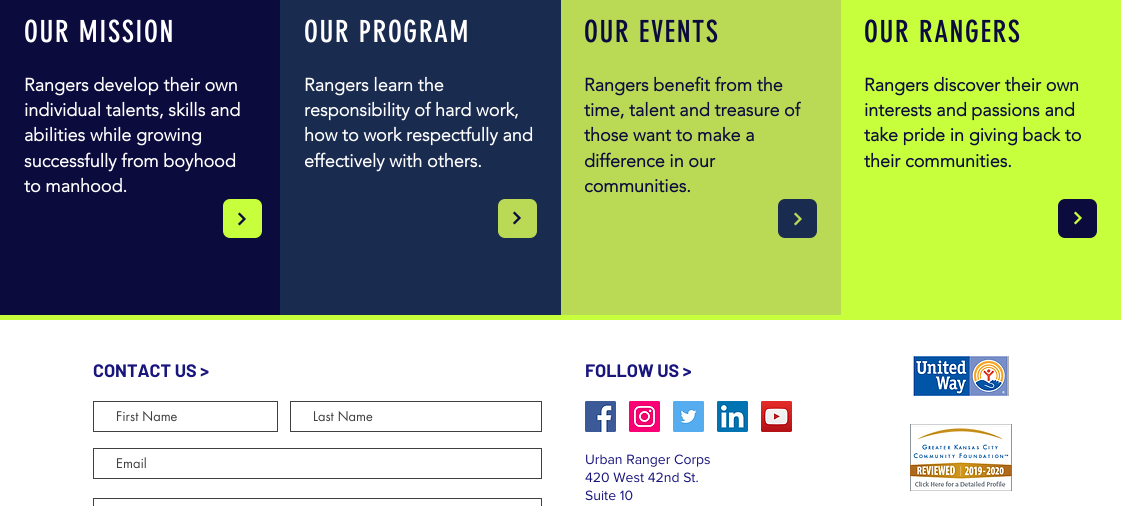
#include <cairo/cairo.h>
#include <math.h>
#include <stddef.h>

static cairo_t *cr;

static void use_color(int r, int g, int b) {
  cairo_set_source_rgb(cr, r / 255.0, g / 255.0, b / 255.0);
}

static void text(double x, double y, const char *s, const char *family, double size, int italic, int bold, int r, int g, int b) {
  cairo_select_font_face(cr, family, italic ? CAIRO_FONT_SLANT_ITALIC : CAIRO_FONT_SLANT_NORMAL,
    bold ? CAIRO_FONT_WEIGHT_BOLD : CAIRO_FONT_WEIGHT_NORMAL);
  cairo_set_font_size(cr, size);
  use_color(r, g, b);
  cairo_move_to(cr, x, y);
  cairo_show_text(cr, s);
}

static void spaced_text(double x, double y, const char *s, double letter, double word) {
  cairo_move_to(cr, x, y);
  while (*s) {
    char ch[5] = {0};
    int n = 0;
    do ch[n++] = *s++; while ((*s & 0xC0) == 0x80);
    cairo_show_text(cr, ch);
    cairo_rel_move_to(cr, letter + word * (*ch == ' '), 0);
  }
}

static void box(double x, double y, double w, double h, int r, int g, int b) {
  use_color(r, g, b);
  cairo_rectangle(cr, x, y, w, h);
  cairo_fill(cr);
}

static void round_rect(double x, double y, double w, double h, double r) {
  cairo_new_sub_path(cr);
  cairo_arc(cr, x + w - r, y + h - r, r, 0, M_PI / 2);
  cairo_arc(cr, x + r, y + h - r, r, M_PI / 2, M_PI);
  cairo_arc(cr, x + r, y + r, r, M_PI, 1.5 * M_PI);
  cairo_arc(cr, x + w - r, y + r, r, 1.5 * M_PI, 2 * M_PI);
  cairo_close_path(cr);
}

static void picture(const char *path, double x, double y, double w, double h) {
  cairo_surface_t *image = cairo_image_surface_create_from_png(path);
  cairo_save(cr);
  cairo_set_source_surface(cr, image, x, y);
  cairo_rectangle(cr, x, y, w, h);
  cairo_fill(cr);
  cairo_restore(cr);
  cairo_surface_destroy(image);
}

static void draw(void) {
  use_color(12, 11, 62);
  cairo_paint(cr);
  use_color(199, 255, 61);
  round_rect(223, 199, 39, 39, 7);
  cairo_fill(cr);
  picture("img_01.png", 238, 212, 8, 14);
  box(280, 0, 281, 315, 26, 43, 80);
  use_color(186, 218, 85);
  round_rect(498, 199, 39, 39, 7);
  cairo_fill(cr);
  picture("img_02.png", 513, 211, 8, 14);
  box(561, 0, 280, 315, 186, 218, 85);
  use_color(26, 43, 80);
  round_rect(778, 199, 39, 39, 7);
  cairo_fill(cr);
  picture("img_03.png", 794, 212, 8, 14);
  box(841, 0, 280, 315, 199, 255, 61);
  use_color(12, 11, 62);
  round_rect(1058, 199, 39, 39, 7);
  cairo_fill(cr);
  picture("img_04.png", 1074, 211, 8, 14);
  box(0, 320, 1121, 186, 255, 255, 255);
  box(0, 315, 1121, 5, 199, 255, 61);
  picture("img_05.png", 913, 356, 96, 40);
  cairo_rectangle(cr, 93.5, 401.5, 184, 30);
  use_color(65, 65, 65);
  cairo_set_line_width(cr, 1);
  cairo_stroke(cr);
  cairo_rectangle(cr, 290.5, 401.5, 251, 30);
  cairo_stroke(cr);
  cairo_rectangle(cr, 93.5, 448.5, 448, 30);
  cairo_stroke(cr);
  cairo_rectangle(cr, 93.5, 498.5, 448, 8);
  cairo_stroke(cr);
  picture("img_06.png", 585, 401, 31, 31);
  picture("img_07.png", 629, 401, 31, 31);
  picture("img_08.png", 673, 401, 31, 31);
  picture("img_09.png", 717, 401, 31, 31);
  picture("img_10.png", 761, 401, 31, 31);
  picture("img_11.png", 910, 424, 102, 67);
  cairo_select_font_face(cr, "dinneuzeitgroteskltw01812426", CAIRO_FONT_SLANT_NORMAL, CAIRO_FONT_WEIGHT_NORMAL);
  cairo_set_font_size(cr, 30);
  use_color(255, 255, 255);
  spaced_text(24, 42, "OUR MISSION", 1.5, 0);
  text(24, 91, "Rangers develop their own", "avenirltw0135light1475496", 18, 0, 1, 255, 255, 255);
  text(24, 116, "individual talents, skills and", "avenirltw0135light1475496", 18, 0, 1, 255, 255, 255);
  text(24, 141, "abilities while growing", "avenirltw0135light1475496", 18, 0, 1, 255, 255, 255);
  text(24, 167, "successfully from boyhood", "avenirltw0135light1475496", 18, 0, 1, 255, 255, 255);
  text(24, 192, "to manhood.", "avenirltw0135light1475496", 18, 0, 1, 255, 255, 255);
  cairo_select_font_face(cr, "dinneuzeitgroteskltw01812426", CAIRO_FONT_SLANT_NORMAL, CAIRO_FONT_WEIGHT_NORMAL);
  cairo_set_font_size(cr, 30);
  spaced_text(304, 42, "OUR PROGRAM", 1.5, 0);
  text(304, 91, "Rangers learn the", "avenirltw0135light1475496", 18, 0, 1, 255, 255, 255);
  text(304, 116, "responsibility of hard work,", "avenirltw0135light1475496", 18, 0, 1, 255, 255, 255);
  text(304, 141, "how to work respectfully and", "avenirltw0135light1475496", 18, 0, 1, 255, 255, 255);
  text(304, 167, "effectively with others.", "avenirltw0135light1475496", 18, 0, 1, 255, 255, 255);
  cairo_select_font_face(cr, "dinneuzeitgroteskltw01812426", CAIRO_FONT_SLANT_NORMAL, CAIRO_FONT_WEIGHT_NORMAL);
  cairo_set_font_size(cr, 30);
  use_color(12, 11, 62);
  spaced_text(584, 42, "OUR EVENTS", 1.5, 0);
  text(584, 91, "Rangers benefit from the", "avenirltw0135light1475496", 18, 0, 1, 12, 11, 62);
  text(584, 116, "time, talent and treasure of", "avenirltw0135light1475496", 18, 0, 1, 12, 11, 62);
  text(584, 141, "those want to make a", "avenirltw0135light1475496", 18, 0, 1, 12, 11, 62);
  text(584, 167, "difference in our", "avenirltw0135light1475496", 18, 0, 1, 12, 11, 62);
  text(584, 192, "communities.", "avenirltw0135light1475496", 18, 0, 1, 12, 11, 62);
  cairo_select_font_face(cr, "dinneuzeitgroteskltw01812426", CAIRO_FONT_SLANT_NORMAL, CAIRO_FONT_WEIGHT_NORMAL);
  cairo_set_font_size(cr, 30);
  spaced_text(864, 42, "OUR RANGERS", 1.5, 0);
  text(864, 91, "Rangers discover their own", "avenirltw0135light1475496", 18, 0, 1, 12, 11, 62);
  text(864, 116, "interests and passions and", "avenirltw0135light1475496", 18, 0, 1, 12, 11, 62);
  text(864, 141, "take pride in giving back to", "avenirltw0135light1475496", 18, 0, 1, 12, 11, 62);
  text(864, 167, "their communities.", "avenirltw0135light1475496", 18, 0, 1, 12, 11, 62);
  text(93, 377, "CONTACT US >", "Barlow", 18, 0, 1, 24, 21, 124);
  text(585, 377, "FOLLOW US >", "Barlow", 18, 0, 1, 24, 21, 124);
  text(116, 421, "First Name", "futura", 13, 0, 0, 65, 65, 65);
  text(313, 421, "Last Name", "futura", 13, 0, 0, 65, 65, 65);
  text(116, 468, "Email", "futura", 13, 0, 0, 65, 65, 65);
  text(585, 464, "Urban Ranger Corps", "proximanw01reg", 14, 0, 0, 24, 21, 124);
  text(585, 482, "420 West 42nd St.", "proximanw01reg", 14, 0, 0, 24, 21, 124);
  text(585, 500, "Suite 10", "proximanw01reg", 14, 0, 0, 24, 21, 124);
}

int main(void) {
  cairo_surface_t *surface = cairo_image_surface_create(CAIRO_FORMAT_RGB24, 1121, 506);
  cr = cairo_create(surface);
  cairo_font_options_t *options = cairo_font_options_create();
  cairo_font_options_set_hint_metrics(options, CAIRO_HINT_METRICS_OFF);
  cairo_font_options_set_hint_style(options, CAIRO_HINT_STYLE_NONE);
  cairo_set_font_options(cr, options);
  cairo_set_miter_limit(cr, 4);
  draw();
  cairo_surface_write_to_png(surface, "out.png");
  cairo_font_options_destroy(options);
  cairo_destroy(cr);
  cairo_surface_destroy(surface);
  return 0;
}
